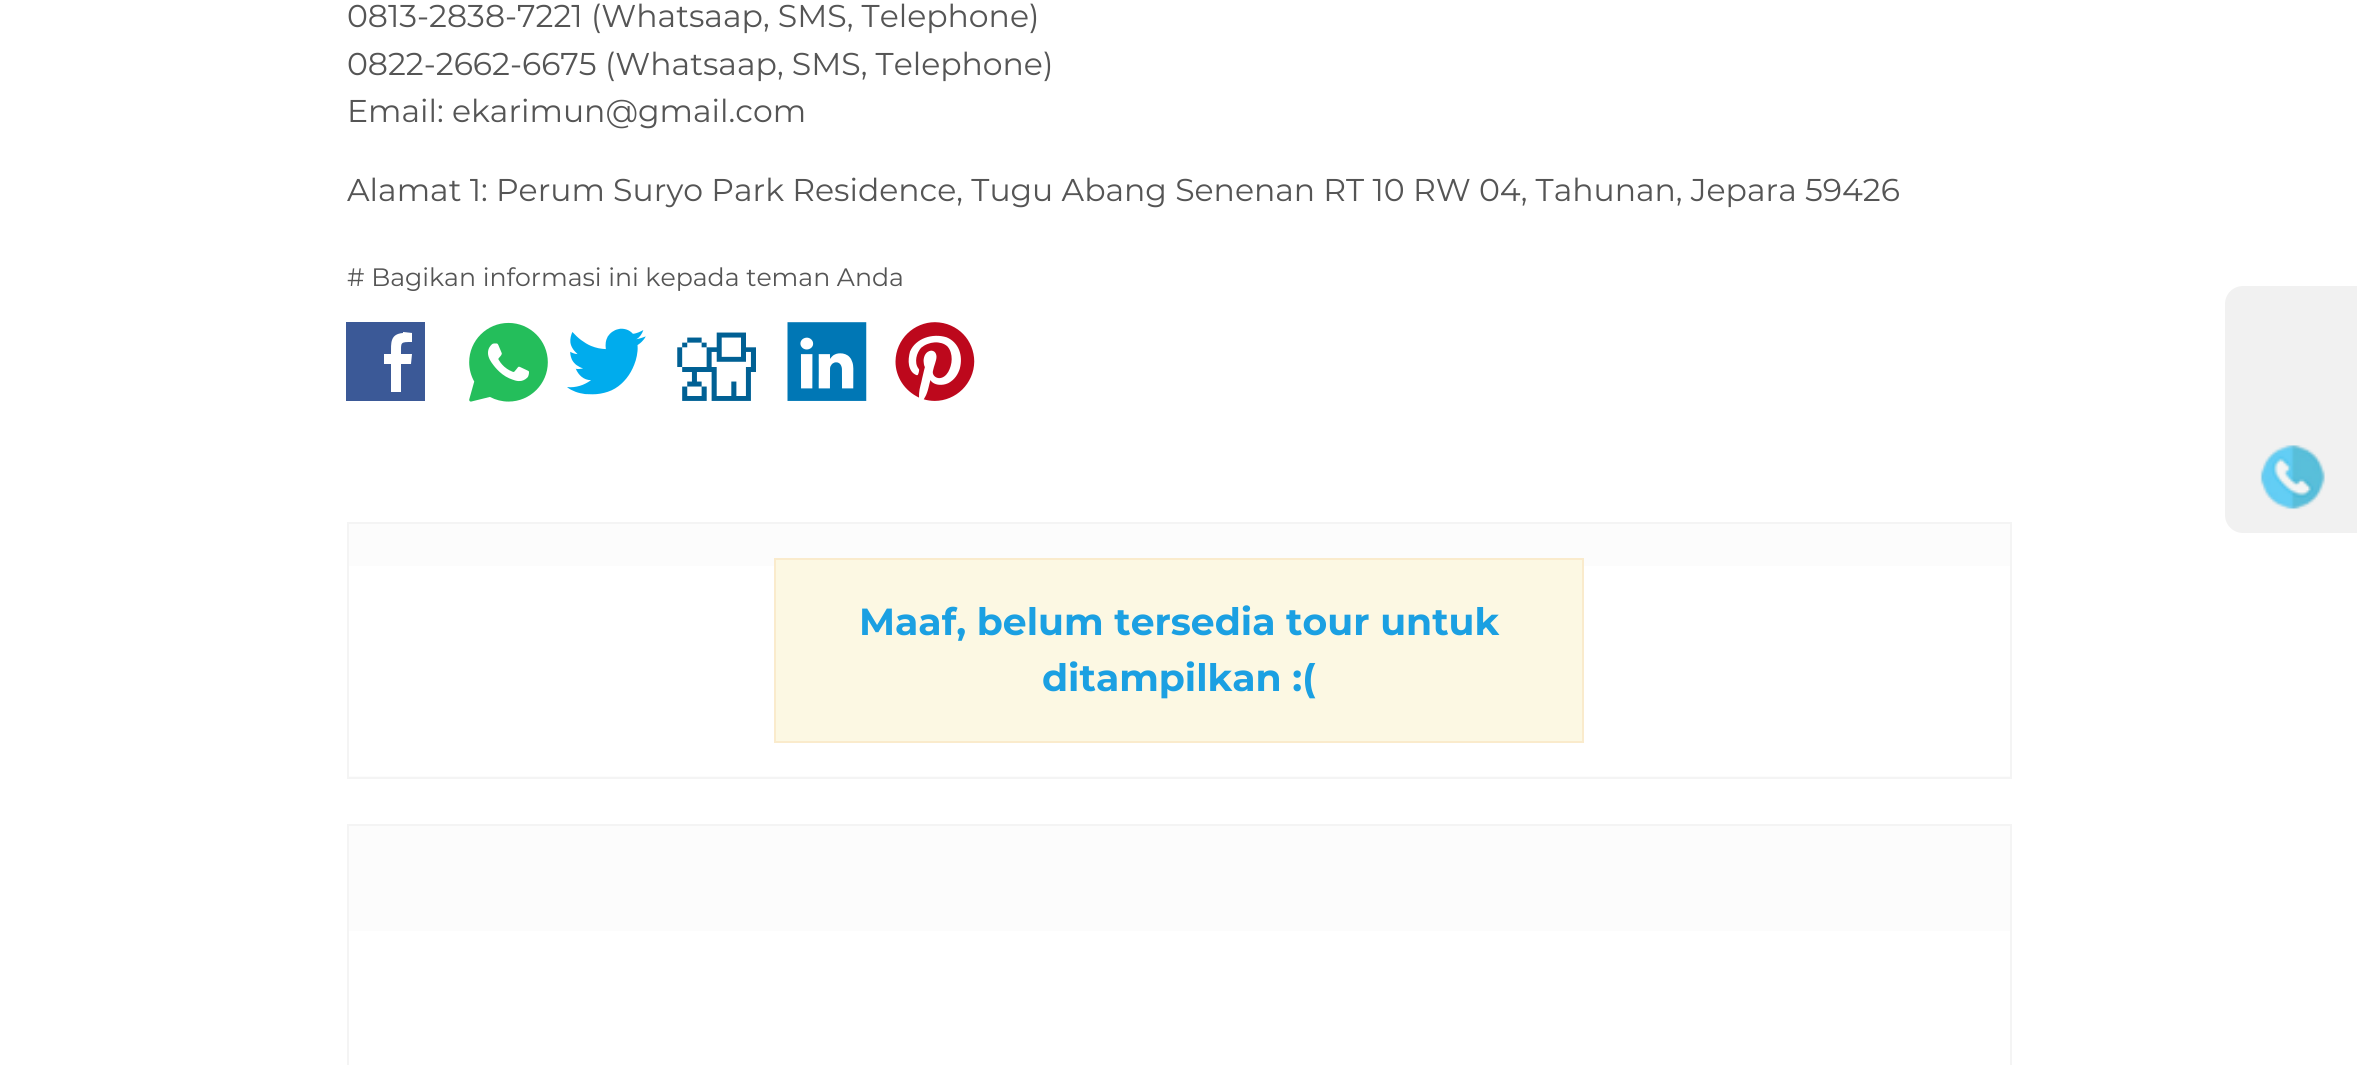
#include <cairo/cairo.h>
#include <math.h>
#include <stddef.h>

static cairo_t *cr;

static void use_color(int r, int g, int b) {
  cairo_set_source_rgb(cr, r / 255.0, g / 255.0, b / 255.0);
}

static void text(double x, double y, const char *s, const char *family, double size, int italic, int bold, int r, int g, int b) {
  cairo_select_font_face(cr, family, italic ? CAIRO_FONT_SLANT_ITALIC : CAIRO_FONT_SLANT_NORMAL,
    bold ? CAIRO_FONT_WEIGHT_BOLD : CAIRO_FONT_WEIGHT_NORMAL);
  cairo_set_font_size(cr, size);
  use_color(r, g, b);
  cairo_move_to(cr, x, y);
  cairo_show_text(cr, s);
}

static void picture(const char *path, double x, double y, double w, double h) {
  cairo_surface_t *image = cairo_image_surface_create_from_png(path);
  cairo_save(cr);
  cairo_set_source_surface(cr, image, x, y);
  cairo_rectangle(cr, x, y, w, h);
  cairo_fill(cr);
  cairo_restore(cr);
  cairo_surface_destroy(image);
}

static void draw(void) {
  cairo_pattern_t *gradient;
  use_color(255, 255, 255);
  cairo_paint(cr);
  use_color(59, 89, 151);
  cairo_new_path(cr);
  cairo_move_to(cr, 346, 322);
  cairo_line_to(cr, 346, 401);
  cairo_line_to(cr, 425, 401);
  cairo_line_to(cr, 425, 322);
  cairo_close_path(cr);
  cairo_move_to(cr, 403, 332);
  cairo_line_to(cr, 412, 333);
  cairo_line_to(cr, 412, 342);
  cairo_curve_to(cr, 400, 342, 401, 342, 401, 354);
  cairo_line_to(cr, 412, 354);
  cairo_line_to(cr, 411, 364);
  cairo_line_to(cr, 401, 364);
  cairo_line_to(cr, 401, 392);
  cairo_line_to(cr, 391, 392);
  cairo_line_to(cr, 391, 364);
  cairo_line_to(cr, 384, 364);
  cairo_line_to(cr, 384, 354);
  cairo_line_to(cr, 391, 354);
  cairo_curve_to(cr, 391, 343, 390, 334, 403, 333);
  cairo_close_path(cr);
  cairo_fill(cr);
  picture("img_01.png", 469, 322, 79, 80);
  picture("img_02.png", 567, 328, 79, 67);
  picture("img_03.png", 677, 332, 79, 69);
  picture("img_04.png", 787, 322, 80, 79);
  picture("img_05.png", 895, 322, 80, 79);
  gradient = cairo_pattern_create_linear(1179, 524, 1179, 776);
  cairo_pattern_add_color_stop_rgba(gradient, 0, 0.988, 0.988, 0.988, 1);
  cairo_pattern_add_color_stop_rgba(gradient, 1, 1, 1, 1, 1);
  cairo_set_source(cr, gradient);
  cairo_pattern_destroy(gradient);
  cairo_rectangle(cr, 349, 524, 1661, 42);
  cairo_fill(cr);
  gradient = cairo_pattern_create_linear(1179, 776, 1179, 1028);
  cairo_pattern_add_color_stop_rgba(gradient, 0, 0.988, 0.988, 0.988, 1);
  cairo_pattern_add_color_stop_rgba(gradient, 1, 1, 1, 1, 1);
  cairo_set_source(cr, gradient);
  cairo_pattern_destroy(gradient);
  cairo_rectangle(cr, 347, 776, 1665, 1);
  cairo_fill(cr);
  cairo_rectangle(cr, 348, 523, 1663, 255);
  use_color(244, 244, 244);
  cairo_stroke(cr);
  use_color(252, 248, 227);
  cairo_rectangle(cr, 775, 559, 808, 183);
  cairo_fill_preserve(cr);
  use_color(250, 235, 204);
  cairo_stroke(cr);
  gradient = cairo_pattern_create_linear(1179, 826, 1179, 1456);
  cairo_pattern_add_color_stop_rgba(gradient, 0, 0.988, 0.988, 0.988, 1);
  cairo_pattern_add_color_stop_rgba(gradient, 1, 1, 1, 1, 1);
  cairo_set_source(cr, gradient);
  cairo_pattern_destroy(gradient);
  cairo_rectangle(cr, 349, 826, 1661, 105);
  cairo_fill(cr);
  cairo_rectangle(cr, 348, 825, 1663, 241);
  use_color(244, 244, 244);
  cairo_stroke(cr);
  use_color(241, 241, 241);
  cairo_new_path(cr);
  cairo_move_to(cr, 2243, 286);
  cairo_line_to(cr, 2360, 286);
  cairo_line_to(cr, 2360, 533);
  cairo_line_to(cr, 2243, 533);
  cairo_curve_to(cr, 2233, 533, 2225, 525, 2225, 515);
  cairo_line_to(cr, 2225, 304);
  cairo_curve_to(cr, 2225, 294, 2233, 286, 2243, 286);
  cairo_close_path(cr);
  cairo_fill(cr);
  picture("img_06.png", 2260, 445, 65, 65);
  text(347, 27, "0813-2838-7221 (Whatsaap, SMS, Telephone)", "Montserrat", 31.5, 0, 0, 85, 85, 85);
  text(347, 75, "0822-2662-6675 (Whatsaap, SMS, Telephone)", "Montserrat", 31.5, 0, 0, 85, 85, 85);
  text(347, 122, "Email: ekarimun@gmail.com", "Montserrat", 31.5, 0, 0, 85, 85, 85);
  text(347, 201, "Alamat 1: Perum Suryo Park Residence, Tugu Abang Senenan RT 10 RW 04, Tahunan, Jepara 59426", "Montserrat", 31.5, 0, 0, 85, 85, 85);
  text(347, 286, "# Bagikan informasi ini kepada teman Anda", "Montserrat", 25.2, 0, 0, 85, 85, 85);
  text(859, 635, "Maaf, belum tersedia tour untuk", "Montserrat", 37.75, 0, 1, 27, 160, 226);
  text(1042, 691, "ditampilkan :(", "Montserrat", 37.75, 0, 1, 27, 160, 226);
}

int main(void) {
  cairo_surface_t *surface = cairo_image_surface_create(CAIRO_FORMAT_RGB24, 2357, 1065);
  cr = cairo_create(surface);
  cairo_font_options_t *options = cairo_font_options_create();
  cairo_font_options_set_hint_metrics(options, CAIRO_HINT_METRICS_OFF);
  cairo_font_options_set_hint_style(options, CAIRO_HINT_STYLE_NONE);
  cairo_set_font_options(cr, options);
  cairo_set_miter_limit(cr, 4);
  draw();
  cairo_surface_write_to_png(surface, "out.png");
  cairo_font_options_destroy(options);
  cairo_destroy(cr);
  cairo_surface_destroy(surface);
  return 0;
}
